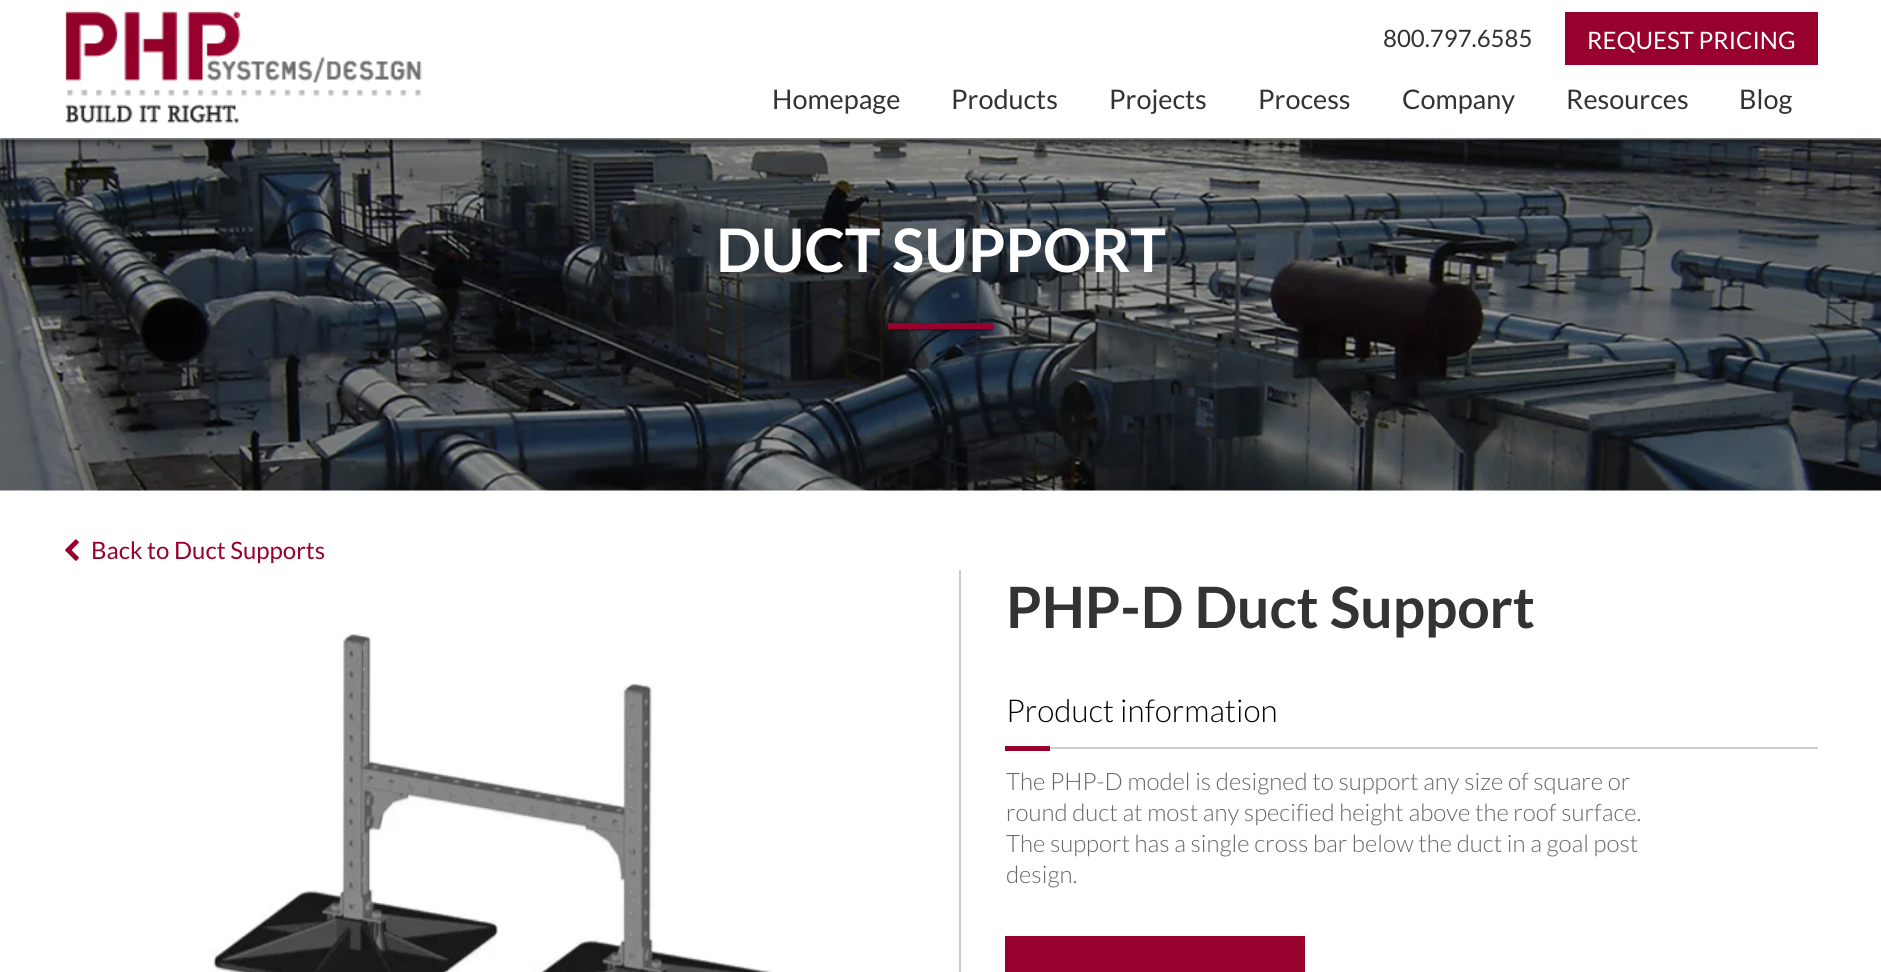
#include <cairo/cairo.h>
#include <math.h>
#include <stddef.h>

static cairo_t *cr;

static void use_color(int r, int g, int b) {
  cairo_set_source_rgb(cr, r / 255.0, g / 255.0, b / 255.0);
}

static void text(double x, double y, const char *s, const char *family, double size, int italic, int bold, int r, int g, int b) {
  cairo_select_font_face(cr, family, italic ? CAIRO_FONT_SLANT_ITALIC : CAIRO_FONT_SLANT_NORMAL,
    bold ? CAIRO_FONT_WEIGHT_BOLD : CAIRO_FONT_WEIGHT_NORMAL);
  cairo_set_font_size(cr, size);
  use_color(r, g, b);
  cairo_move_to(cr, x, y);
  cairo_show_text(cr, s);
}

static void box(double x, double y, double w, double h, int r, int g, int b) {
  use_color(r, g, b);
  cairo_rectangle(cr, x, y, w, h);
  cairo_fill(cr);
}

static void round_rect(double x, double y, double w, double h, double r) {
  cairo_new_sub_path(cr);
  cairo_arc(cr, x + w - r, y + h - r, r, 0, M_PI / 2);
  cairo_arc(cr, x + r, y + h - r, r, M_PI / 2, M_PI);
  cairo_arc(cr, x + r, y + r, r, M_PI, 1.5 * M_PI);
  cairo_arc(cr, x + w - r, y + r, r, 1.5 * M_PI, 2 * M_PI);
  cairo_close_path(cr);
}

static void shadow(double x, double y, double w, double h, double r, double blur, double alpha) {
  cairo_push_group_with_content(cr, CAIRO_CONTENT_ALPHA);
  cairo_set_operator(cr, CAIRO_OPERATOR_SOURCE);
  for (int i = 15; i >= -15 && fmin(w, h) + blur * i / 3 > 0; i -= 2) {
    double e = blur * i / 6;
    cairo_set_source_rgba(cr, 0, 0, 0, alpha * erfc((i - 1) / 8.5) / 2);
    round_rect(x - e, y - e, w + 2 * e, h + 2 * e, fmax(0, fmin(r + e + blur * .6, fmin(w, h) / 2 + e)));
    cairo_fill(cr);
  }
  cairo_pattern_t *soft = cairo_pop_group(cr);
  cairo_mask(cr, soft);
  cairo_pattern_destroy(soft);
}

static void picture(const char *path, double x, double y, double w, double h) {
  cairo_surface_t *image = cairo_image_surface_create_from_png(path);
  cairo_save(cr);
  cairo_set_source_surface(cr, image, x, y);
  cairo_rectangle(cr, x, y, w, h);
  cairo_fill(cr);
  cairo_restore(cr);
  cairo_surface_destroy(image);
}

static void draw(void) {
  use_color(255, 255, 255);
  cairo_paint(cr);
  picture("img_02.png", 0, 139, 1881, 352);
  cairo_save(cr);
  cairo_rectangle(cr, 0, 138, 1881, 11);
  cairo_clip(cr);
  use_color(0, 0, 0);
  shadow(0, 3, 1881, 138, 0, 4, 0.7);
  cairo_restore(cr);
  picture("img_01.png", 65, 11, 357, 113);
  box(1565, 12, 253, 53, 152, 0, 46);
  use_color(0, 0, 0);
  shadow(888, 324, 105, 6, 0, 2, 0.6);
  box(888, 323, 105, 6, 152, 0, 46);
  picture("img_03.png", 65, 539, 14, 22);
  picture("img_04.png", 208, 634, 564, 338);
  box(959, 570, 2, 402, 204, 204, 204);
  box(1050, 747, 768, 2, 204, 204, 204);
  box(1005, 746, 45, 5, 152, 0, 46);
  box(1005, 936, 300, 36, 152, 0, 46);
  text(1383, 47, "800.797.6585", "Lato", 24, 0, 0, 51, 51, 51);
  text(1587, 49, "REQUEST PRICING", "Lato", 24, 0, 0, 255, 255, 255);
  text(772, 109, "Homepage", "Lato", 27, 0, 0, 51, 51, 51);
  text(951, 109, "Products", "Lato", 27, 0, 0, 51, 51, 51);
  text(1109, 109, "Projects", "Lato", 27, 0, 0, 51, 51, 51);
  text(1258, 109, "Process", "Lato", 27, 0, 0, 51, 51, 51);
  text(1402, 109, "Company", "Lato", 27, 0, 0, 51, 51, 51);
  text(1566, 109, "Resources", "Lato", 27, 0, 0, 51, 51, 51);
  text(1739, 109, "Blog", "Lato", 27, 0, 0, 51, 51, 51);
  text(716, 272, "DUCT SUPPORT", "Lato", 60, 0, 1, 255, 255, 255);
  text(91, 559, "Back to Duct Supports", "Lato", 24, 0, 0, 152, 0, 46);
  text(1006, 628, "PHP-D Duct Support", "Lato", 57, 0, 1, 51, 51, 51);
  text(1006, 722, "Product information", "Lato Light", 31.5, 0, 0, 0, 0, 0);
  text(1006, 790, "The PHP-D model is designed to support any size of square or", "Lato Light", 24, 0, 0, 102, 102, 102);
  text(1006, 821, "round duct at most any specified height above the roof surface.", "Lato Light", 24, 0, 0, 102, 102, 102);
  text(1006, 852, "The support has a single cross bar below the duct in a goal post", "Lato Light", 24, 0, 0, 102, 102, 102);
  text(1006, 883, "design.", "Lato Light", 24, 0, 0, 102, 102, 102);
}

int main(void) {
  cairo_surface_t *surface = cairo_image_surface_create(CAIRO_FORMAT_RGB24, 1881, 972);
  cr = cairo_create(surface);
  cairo_font_options_t *options = cairo_font_options_create();
  cairo_font_options_set_hint_metrics(options, CAIRO_HINT_METRICS_OFF);
  cairo_font_options_set_hint_style(options, CAIRO_HINT_STYLE_NONE);
  cairo_set_font_options(cr, options);
  cairo_set_miter_limit(cr, 4);
  draw();
  cairo_surface_write_to_png(surface, "out.png");
  cairo_font_options_destroy(options);
  cairo_destroy(cr);
  cairo_surface_destroy(surface);
  return 0;
}
